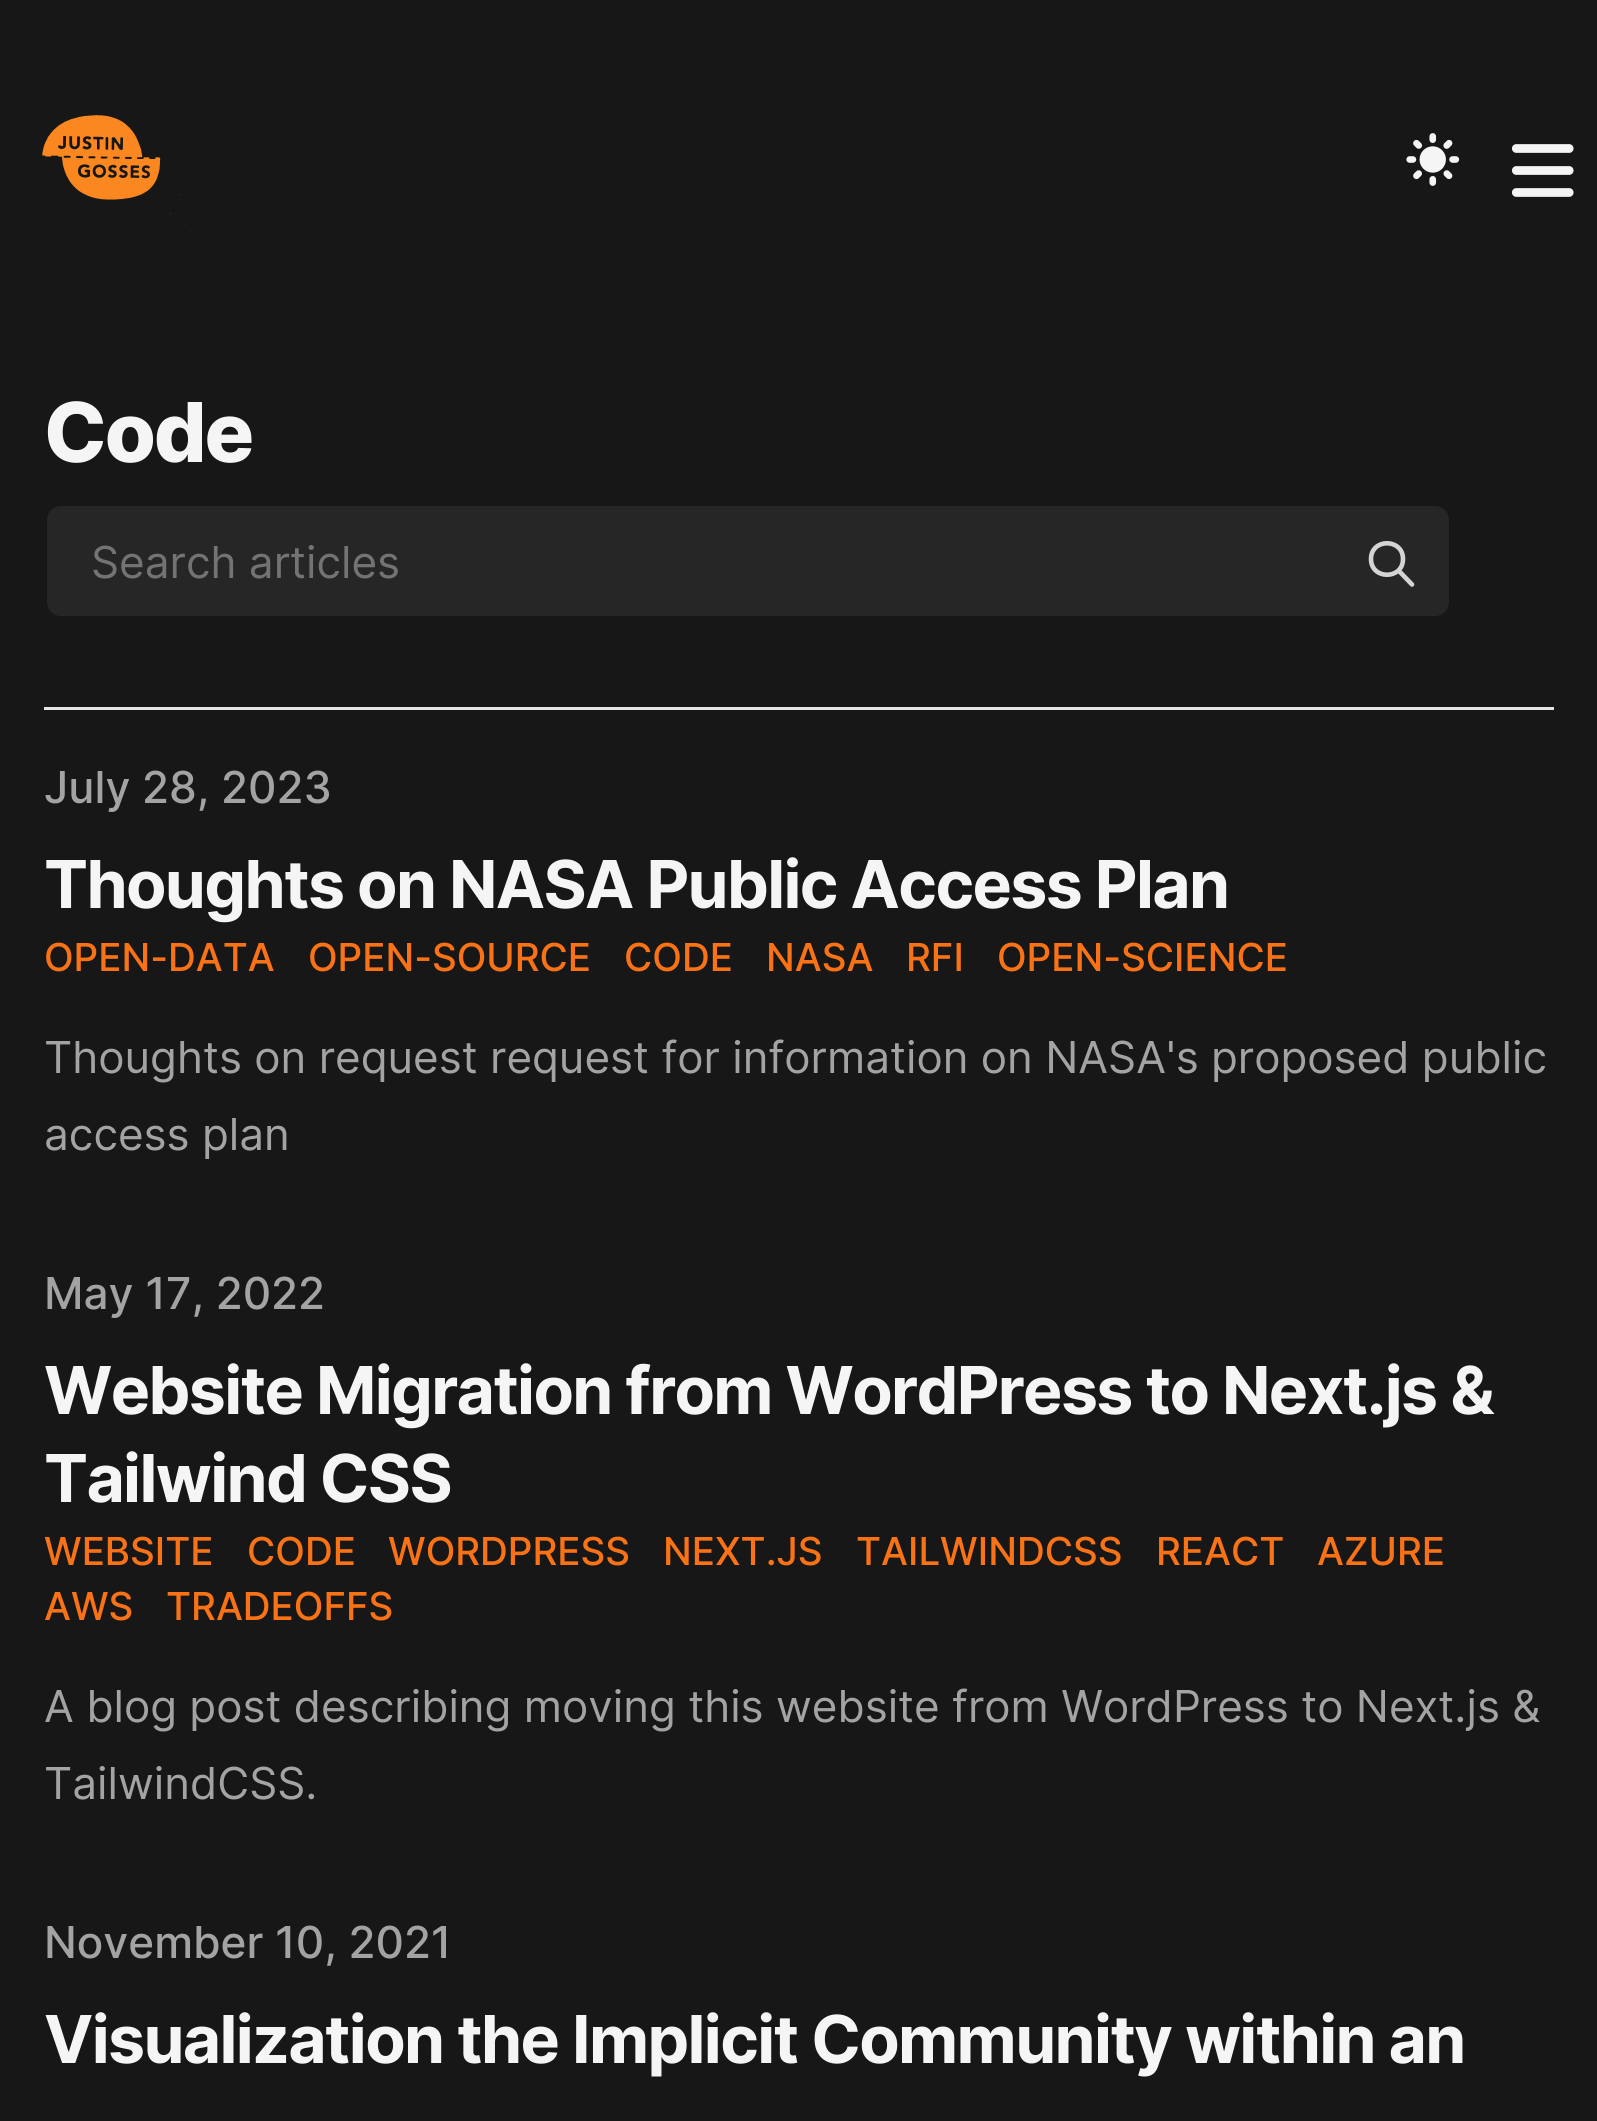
#include <cairo/cairo.h>
#include <math.h>
#include <stddef.h>

static cairo_t *cr;

static void use_color(int r, int g, int b) {
  cairo_set_source_rgb(cr, r / 255.0, g / 255.0, b / 255.0);
}

static void text(double x, double y, const char *s, const char *family, double size, int italic, int bold, int r, int g, int b) {
  cairo_select_font_face(cr, family, italic ? CAIRO_FONT_SLANT_ITALIC : CAIRO_FONT_SLANT_NORMAL,
    bold ? CAIRO_FONT_WEIGHT_BOLD : CAIRO_FONT_WEIGHT_NORMAL);
  cairo_set_font_size(cr, size);
  use_color(r, g, b);
  cairo_move_to(cr, x, y);
  cairo_show_text(cr, s);
}

static void spaced_text(double x, double y, const char *s, double letter, double word) {
  cairo_move_to(cr, x, y);
  while (*s) {
    char ch[5] = {0};
    int n = 0;
    do ch[n++] = *s++; while ((*s & 0xC0) == 0x80);
    cairo_show_text(cr, ch);
    cairo_rel_move_to(cr, letter + word * (*ch == ' '), 0);
  }
}

static void box(double x, double y, double w, double h, int r, int g, int b) {
  use_color(r, g, b);
  cairo_rectangle(cr, x, y, w, h);
  cairo_fill(cr);
}

static void round_rect(double x, double y, double w, double h, double r) {
  cairo_new_sub_path(cr);
  cairo_arc(cr, x + w - r, y + h - r, r, 0, M_PI / 2);
  cairo_arc(cr, x + r, y + h - r, r, M_PI / 2, M_PI);
  cairo_arc(cr, x + r, y + r, r, M_PI, 1.5 * M_PI);
  cairo_arc(cr, x + w - r, y + r, r, 1.5 * M_PI, 2 * M_PI);
  cairo_close_path(cr);
}

static void picture(const char *path, double x, double y, double w, double h) {
  cairo_surface_t *image = cairo_image_surface_create_from_png(path);
  cairo_save(cr);
  cairo_set_source_surface(cr, image, x, y);
  cairo_rectangle(cr, x, y, w, h);
  cairo_fill(cr);
  cairo_restore(cr);
  cairo_surface_destroy(image);
}

static void draw(void) {
  use_color(23, 23, 23);
  cairo_paint(cr);
  picture("img_01.png", 42, 115, 145, 110);
  picture("img_02.png", 1406, 133, 54, 53);
  picture("img_03.png", 1511, 144, 63, 53);
  use_color(38, 38, 38);
  round_rect(45.5, 504.5, 1405, 113, 15.5);
  cairo_fill_preserve(cr);
  use_color(23, 23, 23);
  cairo_set_line_width(cr, 3);
  cairo_stroke(cr);
  cairo_new_path(cr);
  cairo_move_to(cr, 1412, 584.5);
  cairo_line_to(cr, 1398.5, 570.5);
  cairo_move_to(cr, 1403, 559);
  cairo_curve_to(cr, 1403, 580, 1371, 580, 1371, 559);
  cairo_curve_to(cr, 1371, 538, 1403, 538, 1403, 559);
  cairo_close_path(cr);
  use_color(212, 212, 212);
  cairo_set_line_width(cr, 4.6);
  cairo_set_line_cap(cr, CAIRO_LINE_CAP_ROUND);
  cairo_set_line_join(cr, CAIRO_LINE_JOIN_ROUND);
  cairo_stroke(cr);
  box(44, 707, 1510, 3, 229, 229, 229);
  cairo_select_font_face(cr, "Inter ExtraBold", CAIRO_FONT_SLANT_ITALIC, CAIRO_FONT_WEIGHT_NORMAL);
  cairo_set_font_size(cr, 82.5);
  use_color(245, 245, 245);
  spaced_text(44, 462, "Code", -2, 0);
  text(91, 578, "Search articles", "Inter", 44, 1, 0, 115, 115, 115);
  text(44, 803, "July 28, 2023", "Inter Medium", 44, 1, 0, 163, 163, 163);
  cairo_select_font_face(cr, "Inter", CAIRO_FONT_SLANT_ITALIC, CAIRO_FONT_WEIGHT_BOLD);
  cairo_set_font_size(cr, 66);
  use_color(245, 245, 245);
  spaced_text(44, 908, "Thoughts on NASA Public Access Plan", -1.65, 0);
  text(44, 971, "OPEN-DATA", "Inter Medium", 38.5, 1, 0, 249, 115, 22);
  text(308, 971, "OPEN-SOURCE", "Inter Medium", 38.5, 1, 0, 249, 115, 22);
  text(624, 971, "CODE", "Inter Medium", 38.5, 1, 0, 249, 115, 22);
  text(766, 971, "NASA", "Inter Medium", 38.5, 1, 0, 249, 115, 22);
  text(906, 971, "RFI", "Inter Medium", 38.5, 1, 0, 249, 115, 22);
  text(997, 971, "OPEN-SCIENCE", "Inter Medium", 38.5, 1, 0, 249, 115, 22);
  text(44, 1073, "Thoughts on request request for information on NASA's proposed public", "Inter", 44, 1, 0, 163, 163, 163);
  text(44, 1150, "access plan", "Inter", 44, 1, 0, 163, 163, 163);
  text(44, 1309, "May 17, 2022", "Inter Medium", 44, 1, 0, 163, 163, 163);
  cairo_select_font_face(cr, "Inter", CAIRO_FONT_SLANT_ITALIC, CAIRO_FONT_WEIGHT_BOLD);
  cairo_set_font_size(cr, 66);
  use_color(245, 245, 245);
  spaced_text(44, 1414, "Website Migration from WordPress to Next.js &", -1.65, 0);
  spaced_text(44, 1502, "Tailwind CSS", -1.65, 0);
  text(44, 1565, "WEBSITE", "Inter Medium", 38.5, 1, 0, 249, 115, 22);
  text(247, 1565, "CODE", "Inter Medium", 38.5, 1, 0, 249, 115, 22);
  text(388, 1565, "WORDPRESS", "Inter Medium", 38.5, 1, 0, 249, 115, 22);
  text(663, 1565, "NEXT.JS", "Inter Medium", 38.5, 1, 0, 249, 115, 22);
  text(856, 1565, "TAILWINDCSS", "Inter Medium", 38.5, 1, 0, 249, 115, 22);
  text(1156, 1565, "REACT", "Inter Medium", 38.5, 1, 0, 249, 115, 22);
  text(1317, 1565, "AZURE", "Inter Medium", 38.5, 1, 0, 249, 115, 22);
  text(44, 1620, "AWS", "Inter Medium", 38.5, 1, 0, 249, 115, 22);
  text(166, 1620, "TRADEOFFS", "Inter Medium", 38.5, 1, 0, 249, 115, 22);
  text(44, 1722, "A blog post describing moving this website from WordPress to Next.js &", "Inter", 44, 1, 0, 163, 163, 163);
  text(44, 1799, "TailwindCSS.", "Inter", 44, 1, 0, 163, 163, 163);
  text(44, 1958, "November 10, 2021", "Inter Medium", 44, 1, 0, 163, 163, 163);
  cairo_select_font_face(cr, "Inter", CAIRO_FONT_SLANT_ITALIC, CAIRO_FONT_WEIGHT_BOLD);
  cairo_set_font_size(cr, 66);
  use_color(245, 245, 245);
  spaced_text(44, 2063, "Visualization the Implicit Community within an", -1.65, 0);
}

int main(void) {
  cairo_surface_t *surface = cairo_image_surface_create(CAIRO_FORMAT_RGB24, 1597, 2121);
  cr = cairo_create(surface);
  cairo_font_options_t *options = cairo_font_options_create();
  cairo_font_options_set_hint_metrics(options, CAIRO_HINT_METRICS_OFF);
  cairo_font_options_set_hint_style(options, CAIRO_HINT_STYLE_NONE);
  cairo_set_font_options(cr, options);
  cairo_set_miter_limit(cr, 4);
  draw();
  cairo_surface_write_to_png(surface, "out.png");
  cairo_font_options_destroy(options);
  cairo_destroy(cr);
  cairo_surface_destroy(surface);
  return 0;
}
